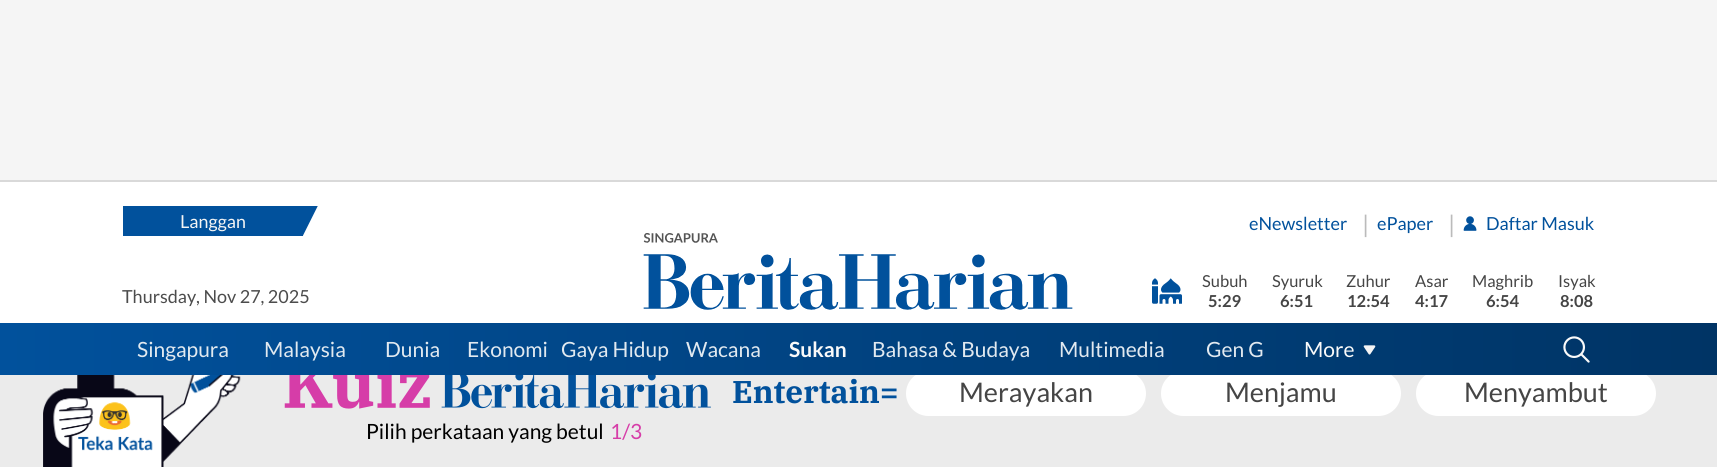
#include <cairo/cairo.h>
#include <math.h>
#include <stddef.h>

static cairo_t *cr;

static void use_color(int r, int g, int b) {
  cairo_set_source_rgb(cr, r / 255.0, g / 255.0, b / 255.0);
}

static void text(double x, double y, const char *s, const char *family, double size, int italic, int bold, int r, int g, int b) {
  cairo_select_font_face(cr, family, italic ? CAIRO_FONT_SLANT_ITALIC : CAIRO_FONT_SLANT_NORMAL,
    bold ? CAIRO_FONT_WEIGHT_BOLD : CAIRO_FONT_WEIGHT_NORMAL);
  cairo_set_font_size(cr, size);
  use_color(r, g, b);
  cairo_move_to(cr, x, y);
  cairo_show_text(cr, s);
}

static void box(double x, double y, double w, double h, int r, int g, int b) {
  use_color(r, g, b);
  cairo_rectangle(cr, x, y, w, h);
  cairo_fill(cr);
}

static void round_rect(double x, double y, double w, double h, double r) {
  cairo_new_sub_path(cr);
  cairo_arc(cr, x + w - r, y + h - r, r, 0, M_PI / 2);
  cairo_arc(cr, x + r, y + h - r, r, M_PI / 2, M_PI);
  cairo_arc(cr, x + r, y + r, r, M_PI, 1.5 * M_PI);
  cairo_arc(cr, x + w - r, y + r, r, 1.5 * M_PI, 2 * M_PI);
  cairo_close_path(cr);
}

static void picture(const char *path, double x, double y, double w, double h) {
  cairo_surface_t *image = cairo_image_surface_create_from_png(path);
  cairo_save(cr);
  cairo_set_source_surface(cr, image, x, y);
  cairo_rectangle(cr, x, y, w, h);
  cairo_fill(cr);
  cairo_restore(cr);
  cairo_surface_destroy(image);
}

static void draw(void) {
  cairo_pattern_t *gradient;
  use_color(245, 245, 245);
  cairo_paint(cr);
  box(0, 180, 1717, 2, 217, 217, 217);
  box(0, 182, 1717, 141, 255, 255, 255);
  picture("img_01.png", 123, 206, 195, 30);
  picture("img_02.png", 643, 233, 430, 77);
  picture("img_03.png", 1463, 216, 14, 15);
  picture("img_04.png", 1152, 278, 30, 26);
  box(0, 375, 1717, 92, 235, 235, 235);
  use_color(255, 255, 255);
  round_rect(906, 371, 240, 45, 22.5);
  cairo_fill(cr);
  round_rect(1161, 371, 240, 45, 22.5);
  cairo_fill(cr);
  round_rect(1416, 371, 240, 45, 22.5);
  cairo_fill(cr);
  gradient = cairo_pattern_create_linear(0, 349, 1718, 349);
  cairo_pattern_add_color_stop_rgba(gradient, 0, 0.004, 0.318, 0.612, 1);
  cairo_pattern_add_color_stop_rgba(gradient, 1, 0, 0.204, 0.396, 1);
  cairo_set_source(cr, gradient);
  cairo_pattern_destroy(gradient);
  cairo_rectangle(cr, 0, 323, 1717, 52);
  cairo_fill(cr);
  picture("img_05.png", 1363, 345, 13, 10);
  picture("img_06.png", 1563, 336, 27, 27);
  picture("img_07.png", 43, 375, 198, 92);
  picture("img_08.png", 284, 375, 427, 34);
  text(122, 303, "Thursday, Nov 27, 2025", "Lato", 18, 0, 0, 76, 76, 76);
  text(1249, 230, "eNewsletter", "Lato", 18, 0, 0, 1, 81, 156);
  text(1362, 233, "|", "Lato", 24, 0, 0, 187, 187, 187);
  text(1377, 230, "ePaper", "Lato", 18, 0, 0, 1, 81, 156);
  text(1448, 233, "|", "Lato", 24, 0, 0, 187, 187, 187);
  text(1486, 230, "Daftar Masuk", "Lato", 18, 0, 0, 1, 81, 156);
  text(1202, 287, "Subuh", "Lato", 16.5, 0, 0, 69, 69, 69);
  text(1208, 307, "5:29", "Lato", 16.5, 0, 1, 69, 69, 69);
  text(1272, 287, "Syuruk", "Lato", 16.5, 0, 0, 69, 69, 69);
  text(1280, 307, "6:51", "Lato", 16.5, 0, 1, 69, 69, 69);
  text(1346, 287, "Zuhur", "Lato", 16.5, 0, 0, 69, 69, 69);
  text(1347, 307, "12:54", "Lato", 16.5, 0, 1, 69, 69, 69);
  text(1415, 287, "Asar", "Lato", 16.5, 0, 0, 69, 69, 69);
  text(1415, 307, "4:17", "Lato", 16.5, 0, 1, 69, 69, 69);
  text(1472, 287, "Maghrib", "Lato", 16.5, 0, 0, 69, 69, 69);
  text(1486, 307, "6:54", "Lato", 16.5, 0, 1, 69, 69, 69);
  text(1558, 287, "Isyak", "Lato", 16.5, 0, 0, 69, 69, 69);
  text(1560, 307, "8:08", "Lato", 16.5, 0, 1, 69, 69, 69);
  text(137, 357, "Singapura", "Lato", 21, 0, 0, 225, 233, 240);
  text(264, 357, "Malaysia", "Lato", 21, 0, 0, 225, 233, 240);
  text(385, 357, "Dunia", "Lato", 21, 0, 0, 225, 233, 240);
  text(467, 357, "Ekonomi", "Lato", 21, 0, 0, 225, 233, 240);
  text(561, 357, "Gaya Hidup", "Lato", 21, 0, 0, 225, 233, 240);
  text(686, 357, "Wacana", "Lato", 21, 0, 0, 225, 233, 240);
  text(789, 357, "Sukan", "Lato", 21, 0, 1, 250, 250, 250);
  text(872, 357, "Bahasa & Budaya", "Lato", 21, 0, 0, 225, 233, 240);
  text(1059, 357, "Multimedia", "Lato", 21, 0, 0, 225, 233, 240);
  text(1206, 357, "Gen G", "Lato", 21, 0, 0, 225, 233, 240);
  text(1304, 357, "More", "Lato", 21, 0, 0, 250, 250, 250);
  text(732, 403, "Entertain=", "IBM Plex Serif", 31.5, 0, 1, 1, 81, 156);
  text(959, 402, "Merayakan", "Lato", 27, 0, 0, 69, 69, 69);
  text(1225, 402, "Menjamu", "Lato", 27, 0, 0, 69, 69, 69);
  text(1464, 402, "Menyambut", "Lato", 27, 0, 0, 69, 69, 69);
  text(366, 439, "Pilih perkataan yang betul", "Lato", 21, 0, 0, 0, 0, 0);
  text(610, 439, "1/3", "Lato", 21, 0, 0, 214, 61, 168);
}

int main(void) {
  cairo_surface_t *surface = cairo_image_surface_create(CAIRO_FORMAT_RGB24, 1717, 467);
  cr = cairo_create(surface);
  cairo_font_options_t *options = cairo_font_options_create();
  cairo_font_options_set_hint_metrics(options, CAIRO_HINT_METRICS_OFF);
  cairo_font_options_set_hint_style(options, CAIRO_HINT_STYLE_NONE);
  cairo_set_font_options(cr, options);
  cairo_set_miter_limit(cr, 4);
  draw();
  cairo_surface_write_to_png(surface, "out.png");
  cairo_font_options_destroy(options);
  cairo_destroy(cr);
  cairo_surface_destroy(surface);
  return 0;
}
